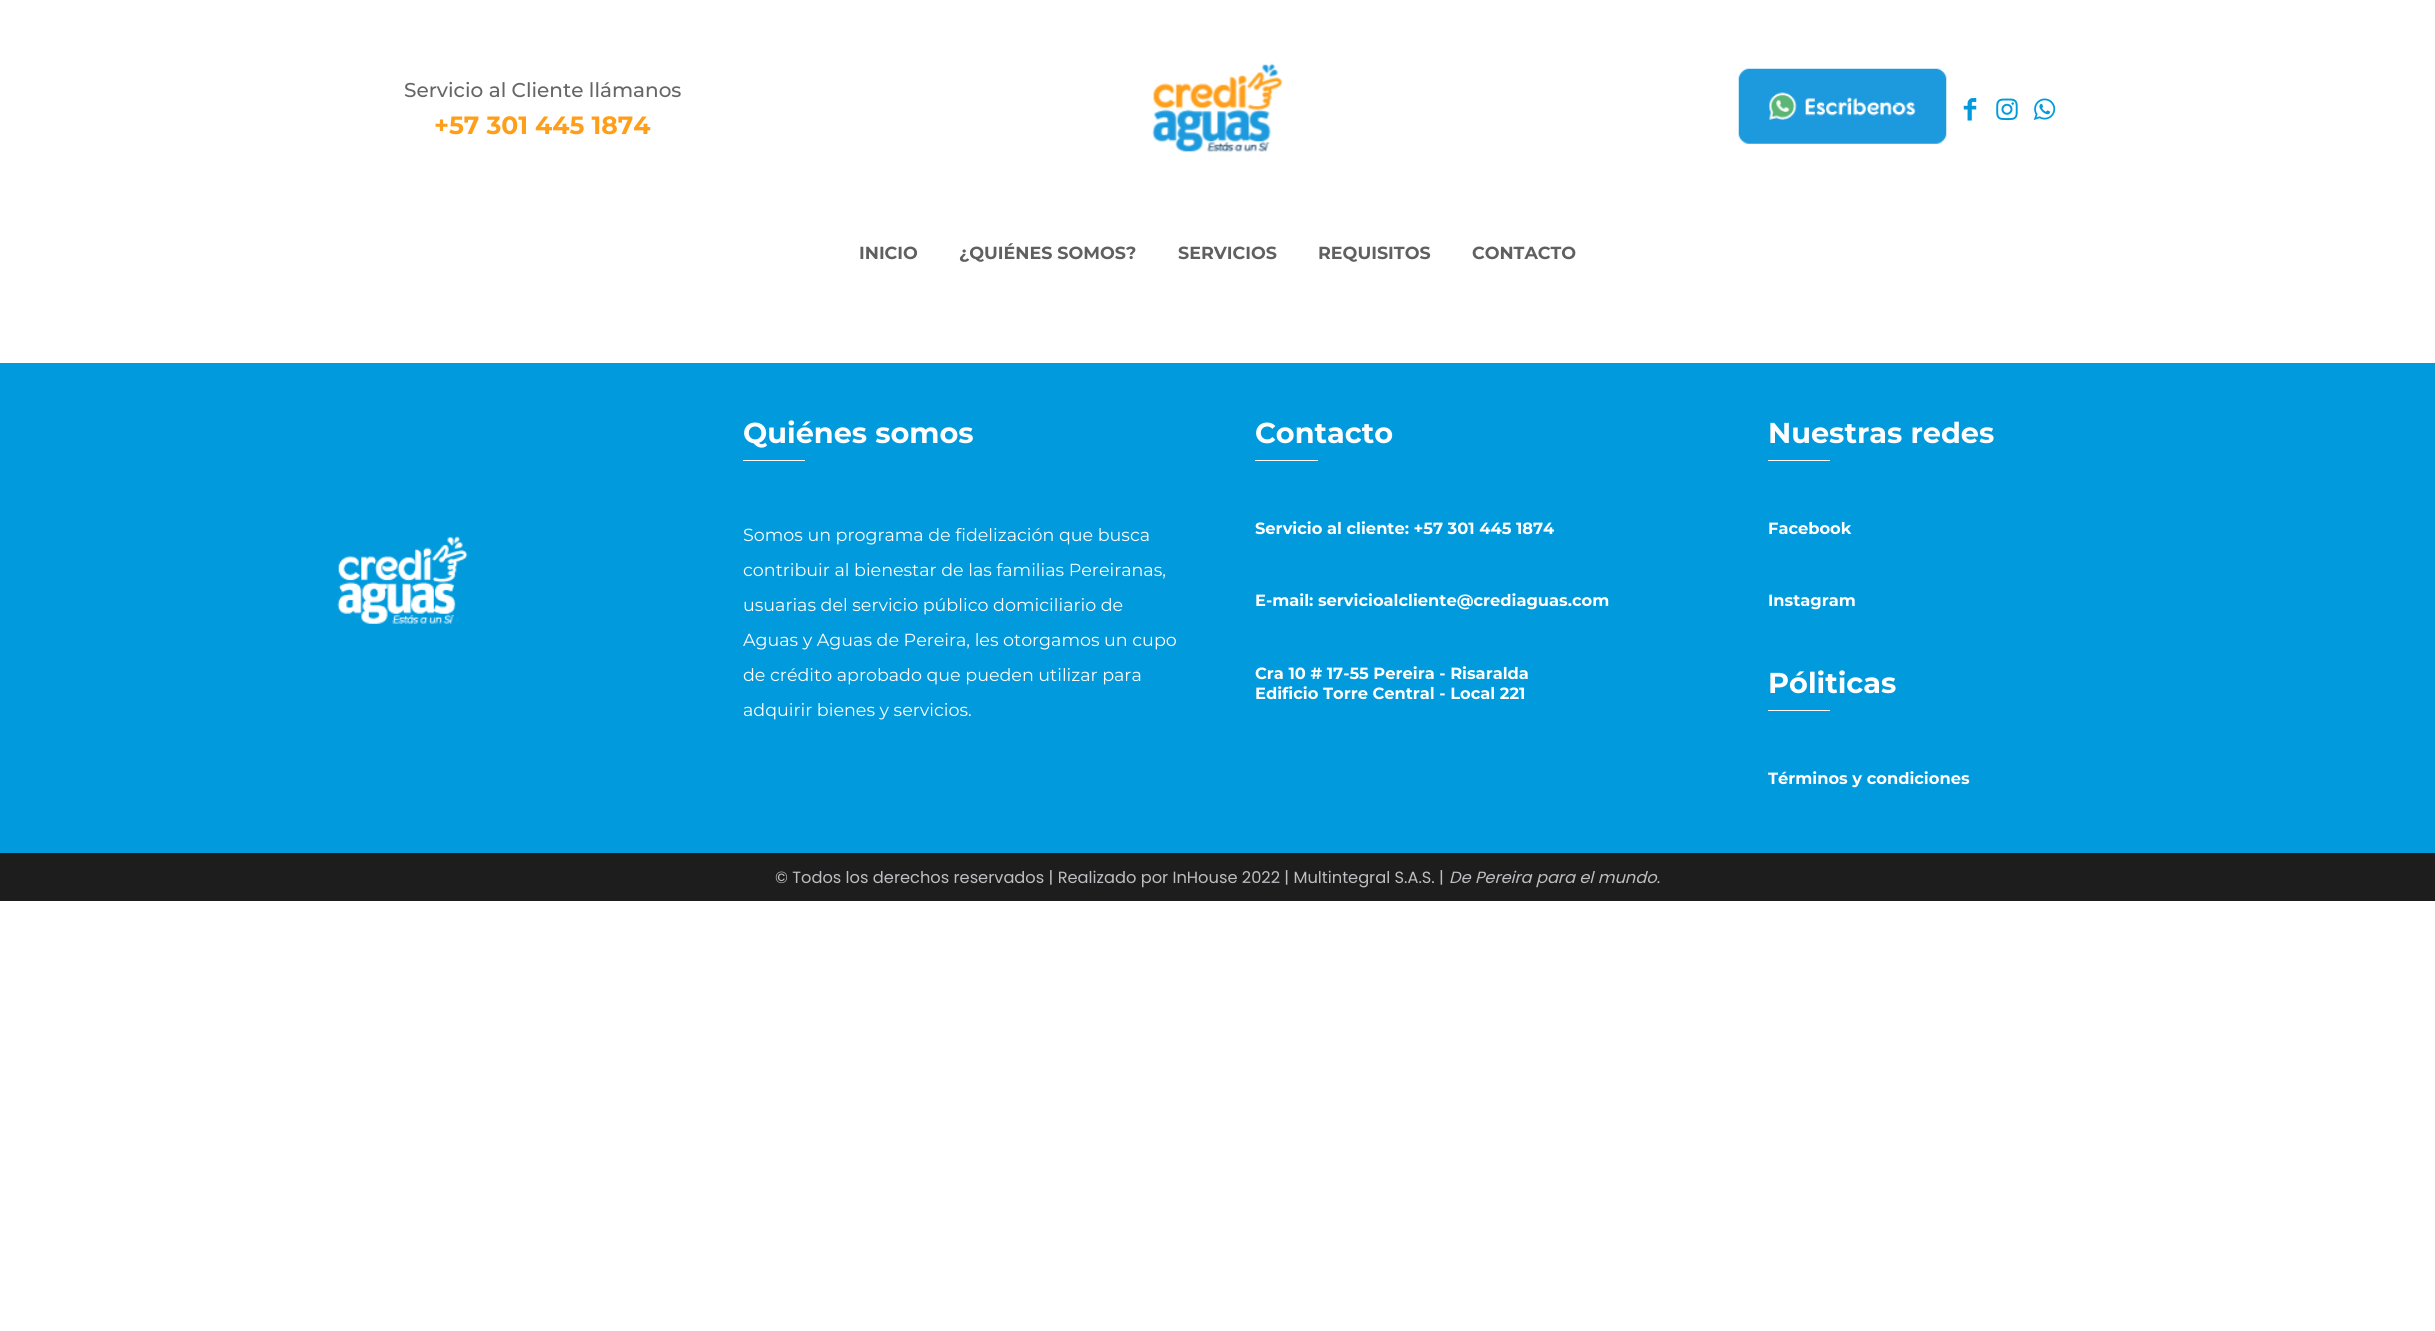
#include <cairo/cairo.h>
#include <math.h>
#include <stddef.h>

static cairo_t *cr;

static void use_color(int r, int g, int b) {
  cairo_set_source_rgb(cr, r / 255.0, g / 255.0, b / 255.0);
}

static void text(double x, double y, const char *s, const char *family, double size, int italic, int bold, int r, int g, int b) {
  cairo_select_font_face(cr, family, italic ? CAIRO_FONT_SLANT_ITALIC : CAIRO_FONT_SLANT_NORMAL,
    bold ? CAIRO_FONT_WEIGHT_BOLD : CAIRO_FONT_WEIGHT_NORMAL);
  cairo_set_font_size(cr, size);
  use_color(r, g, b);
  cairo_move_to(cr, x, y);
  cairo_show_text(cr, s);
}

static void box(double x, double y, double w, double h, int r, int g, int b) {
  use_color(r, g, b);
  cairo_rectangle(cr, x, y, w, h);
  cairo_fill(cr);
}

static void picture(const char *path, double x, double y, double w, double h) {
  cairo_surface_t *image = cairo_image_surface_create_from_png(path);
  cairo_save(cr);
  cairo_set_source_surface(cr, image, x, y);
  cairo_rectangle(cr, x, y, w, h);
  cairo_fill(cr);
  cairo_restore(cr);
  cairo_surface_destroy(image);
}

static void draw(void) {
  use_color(255, 255, 255);
  cairo_paint(cr);
  picture("img_01.png", 1152, 63, 131, 90);
  picture("img_02.png", 1738, 68, 209, 76);
  picture("img_03.png", 1963, 98, 14, 23);
  picture("img_04.png", 1996, 98, 22, 22);
  picture("img_05.png", 2033, 98, 23, 22);
  box(0, 363, 2435, 490, 0, 154, 221);
  picture("img_06.png", 337, 536, 131, 88);
  box(743, 460, 62, 1, 255, 255, 255);
  box(1255, 460, 63, 1, 255, 255, 255);
  box(1768, 460, 62, 1, 255, 255, 255);
  box(1768, 710, 62, 1, 255, 255, 255);
  box(0, 853, 2435, 48, 29, 29, 29);
  text(404, 97, "Servicio al Cliente llámanos", "Montserrat Medium", 20, 0, 0, 102, 102, 102);
  text(434, 134, "+57 301 445 1874", "Montserrat", 25, 0, 1, 255, 158, 24);
  text(859, 259, "INICIO", "Montserrat", 17.5, 0, 1, 96, 96, 96);
  text(959, 259, "¿QUIÉNES SOMOS?", "Montserrat", 17.5, 0, 1, 96, 96, 96);
  text(1178, 259, "SERVICIOS", "Montserrat", 17.5, 0, 1, 96, 96, 96);
  text(1318, 259, "REQUISITOS", "Montserrat", 17.5, 0, 1, 96, 96, 96);
  text(1472, 259, "CONTACTO", "Montserrat", 17.5, 0, 1, 96, 96, 96);
  text(743, 443, "Quiénes somos", "Montserrat", 28.75, 0, 1, 255, 255, 255);
  text(743, 541, "Somos un programa de fidelización que busca", "Montserrat", 17.5, 0, 0, 255, 255, 255);
  text(743, 576, "contribuir al bienestar de las familias Pereiranas,", "Montserrat", 17.5, 0, 0, 255, 255, 255);
  text(743, 611, "usuarias del servicio público domiciliario de", "Montserrat", 17.5, 0, 0, 255, 255, 255);
  text(743, 646, "Aguas y Aguas de Pereira, les otorgamos un cupo", "Montserrat", 17.5, 0, 0, 255, 255, 255);
  text(743, 681, "de crédito aprobado que pueden utilizar para", "Montserrat", 17.5, 0, 0, 255, 255, 255);
  text(743, 716, "adquirir bienes y servicios.", "Montserrat", 17.5, 0, 0, 255, 255, 255);
  text(1255, 443, "Contacto", "Montserrat", 28.75, 0, 1, 255, 255, 255);
  text(1255, 534, "Servicio al cliente: +57 301 445 1874", "Montserrat", 16.25, 0, 1, 255, 255, 255);
  text(1255, 606, "E-mail: servicioalcliente@crediaguas.com", "Montserrat", 16.25, 0, 1, 255, 255, 255);
  text(1255, 679, "Cra 10 # 17-55 Pereira - Risaralda", "Montserrat", 16.25, 0, 1, 255, 255, 255);
  text(1255, 699, "Edificio Torre Central - Local 221", "Montserrat", 16.25, 0, 1, 255, 255, 255);
  text(1768, 443, "Nuestras redes", "Montserrat", 28.75, 0, 1, 255, 255, 255);
  text(1768, 534, "Facebook", "Montserrat", 16.25, 0, 1, 255, 255, 255);
  text(1768, 606, "Instagram", "Montserrat", 16.25, 0, 1, 255, 255, 255);
  text(1768, 693, "Póliticas", "Montserrat", 28.75, 0, 1, 255, 255, 255);
  text(1768, 784, "Términos y condiciones", "Montserrat", 16.25, 0, 1, 255, 255, 255);
  text(775, 883, "© Todos los derechos reservados | Realizado por InHouse 2022 | Multintegral S.A.S. |", "Poppins", 16.25, 0, 0, 188, 190, 193);
  text(1449, 883, "De Pereira para el mundo.", "Poppins", 16.25, 1, 0, 188, 190, 193);
}

int main(void) {
  cairo_surface_t *surface = cairo_image_surface_create(CAIRO_FORMAT_RGB24, 2435, 1331);
  cr = cairo_create(surface);
  cairo_font_options_t *options = cairo_font_options_create();
  cairo_font_options_set_hint_metrics(options, CAIRO_HINT_METRICS_OFF);
  cairo_font_options_set_hint_style(options, CAIRO_HINT_STYLE_NONE);
  cairo_set_font_options(cr, options);
  cairo_set_miter_limit(cr, 4);
  draw();
  cairo_surface_write_to_png(surface, "out.png");
  cairo_font_options_destroy(options);
  cairo_destroy(cr);
  cairo_surface_destroy(surface);
  return 0;
}
